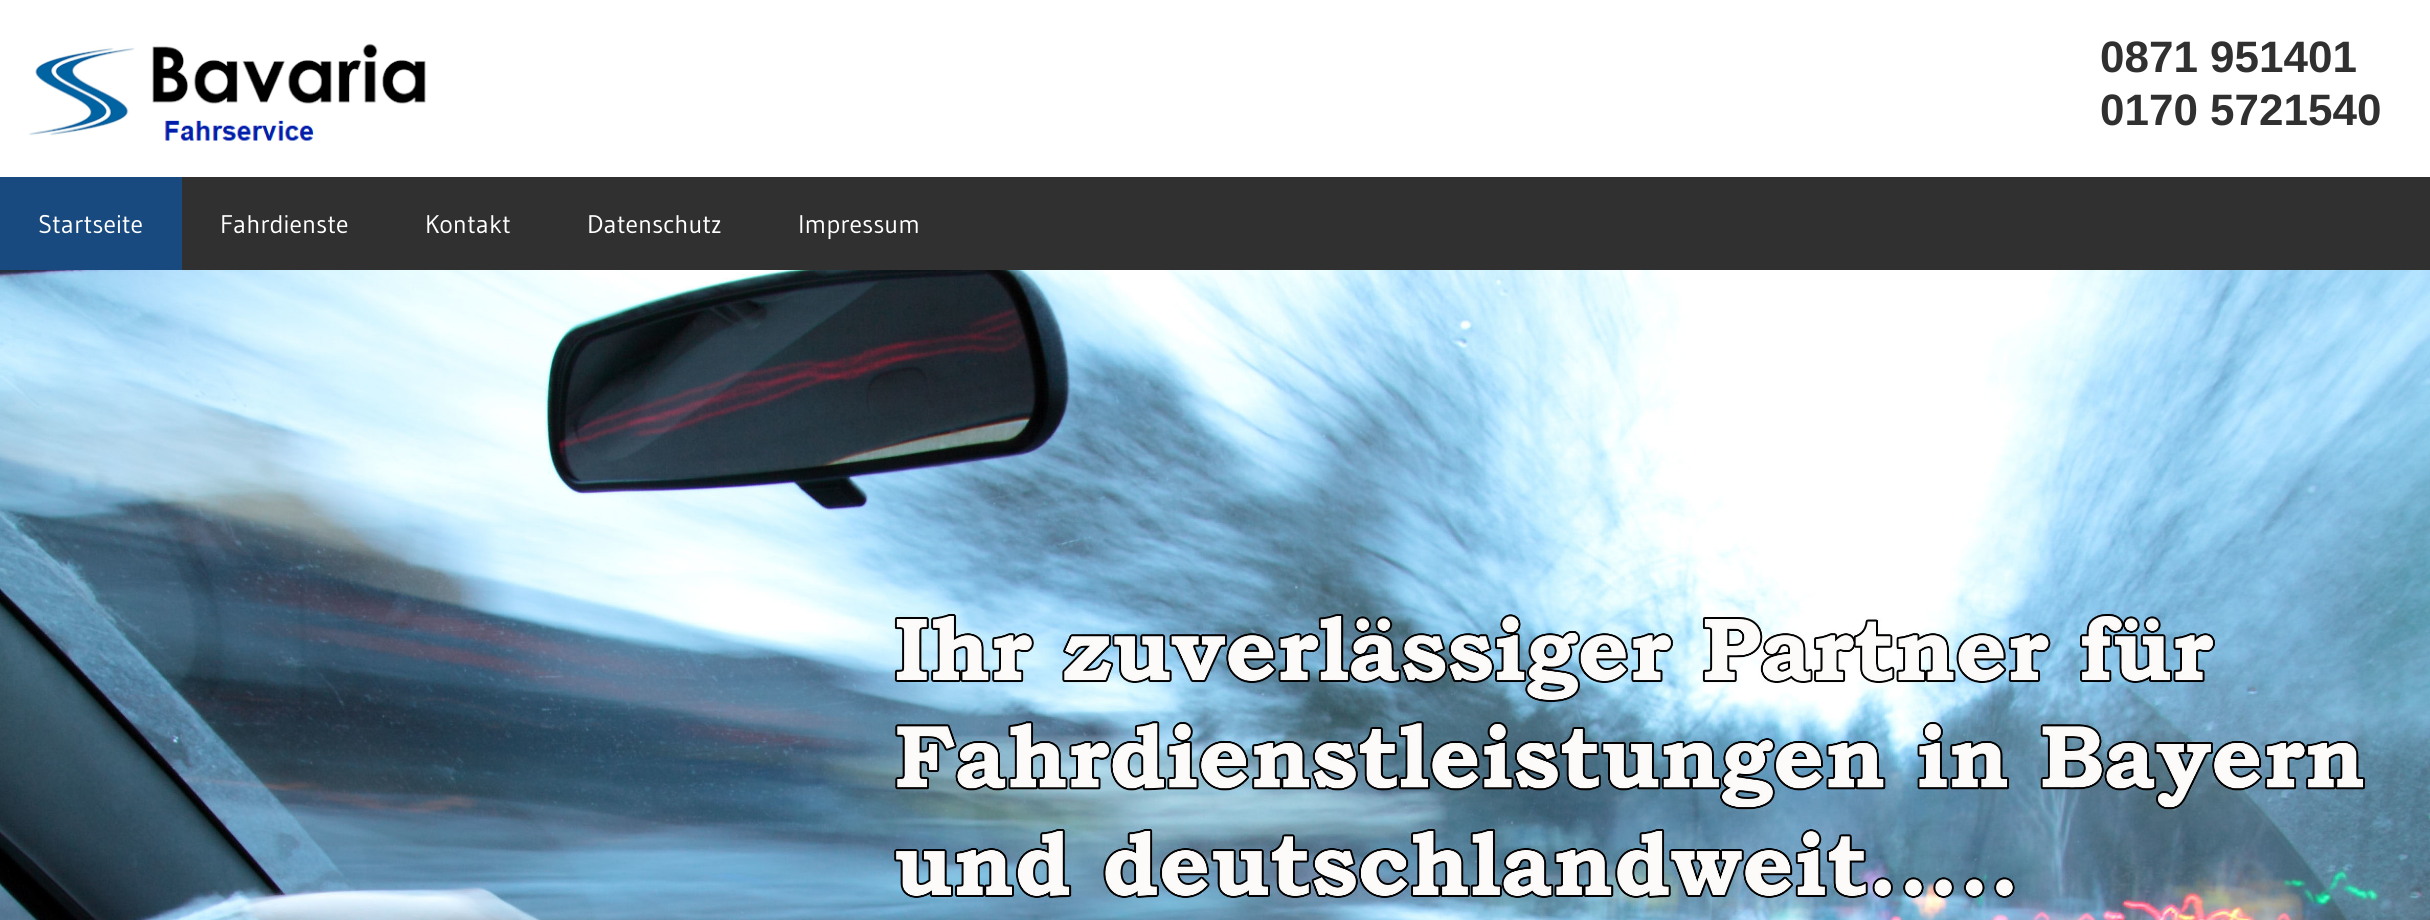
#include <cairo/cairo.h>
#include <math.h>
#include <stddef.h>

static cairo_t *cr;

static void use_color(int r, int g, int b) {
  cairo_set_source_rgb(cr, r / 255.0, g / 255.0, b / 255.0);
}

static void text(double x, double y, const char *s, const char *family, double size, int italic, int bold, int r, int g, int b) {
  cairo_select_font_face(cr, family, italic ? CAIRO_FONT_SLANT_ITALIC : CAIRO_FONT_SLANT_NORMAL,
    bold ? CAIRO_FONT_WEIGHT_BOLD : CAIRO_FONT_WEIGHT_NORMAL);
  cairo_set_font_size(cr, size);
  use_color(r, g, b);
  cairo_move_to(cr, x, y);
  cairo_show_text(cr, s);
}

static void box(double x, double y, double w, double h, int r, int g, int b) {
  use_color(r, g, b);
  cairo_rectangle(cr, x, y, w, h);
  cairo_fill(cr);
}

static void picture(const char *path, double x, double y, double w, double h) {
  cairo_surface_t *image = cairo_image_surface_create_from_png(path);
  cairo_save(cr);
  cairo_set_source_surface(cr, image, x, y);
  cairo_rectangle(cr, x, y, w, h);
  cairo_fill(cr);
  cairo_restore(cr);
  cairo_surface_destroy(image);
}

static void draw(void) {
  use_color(255, 255, 255);
  cairo_paint(cr);
  picture("img_01.png", 29, 43, 397, 98);
  box(182, 177, 2248, 93, 48, 48, 48);
  box(0, 177, 182, 93, 24, 74, 127);
  picture("img_02.png", 0, 270, 2430, 650);
  text(2100, 72, "0871 951401", "Liberation Sans", 44, 0, 1, 48, 48, 48);
  text(2100, 125, "0170 5721540", "Liberation Sans", 44, 0, 1, 48, 48, 48);
  text(38, 233, "Startseite", "Gudea", 25.5, 0, 0, 255, 255, 255);
  text(220, 233, "Fahrdienste", "Gudea", 25.5, 0, 0, 255, 255, 255);
  text(425, 233, "Kontakt", "Gudea", 25.5, 0, 0, 255, 255, 255);
  text(587, 233, "Datenschutz", "Gudea", 25.5, 0, 0, 255, 255, 255);
  text(798, 233, "Impressum", "Gudea", 25.5, 0, 0, 255, 255, 255);
}

int main(void) {
  cairo_surface_t *surface = cairo_image_surface_create(CAIRO_FORMAT_RGB24, 2430, 920);
  cr = cairo_create(surface);
  cairo_font_options_t *options = cairo_font_options_create();
  cairo_font_options_set_hint_metrics(options, CAIRO_HINT_METRICS_OFF);
  cairo_font_options_set_hint_style(options, CAIRO_HINT_STYLE_NONE);
  cairo_set_font_options(cr, options);
  cairo_set_miter_limit(cr, 4);
  draw();
  cairo_surface_write_to_png(surface, "out.png");
  cairo_font_options_destroy(options);
  cairo_destroy(cr);
  cairo_surface_destroy(surface);
  return 0;
}
